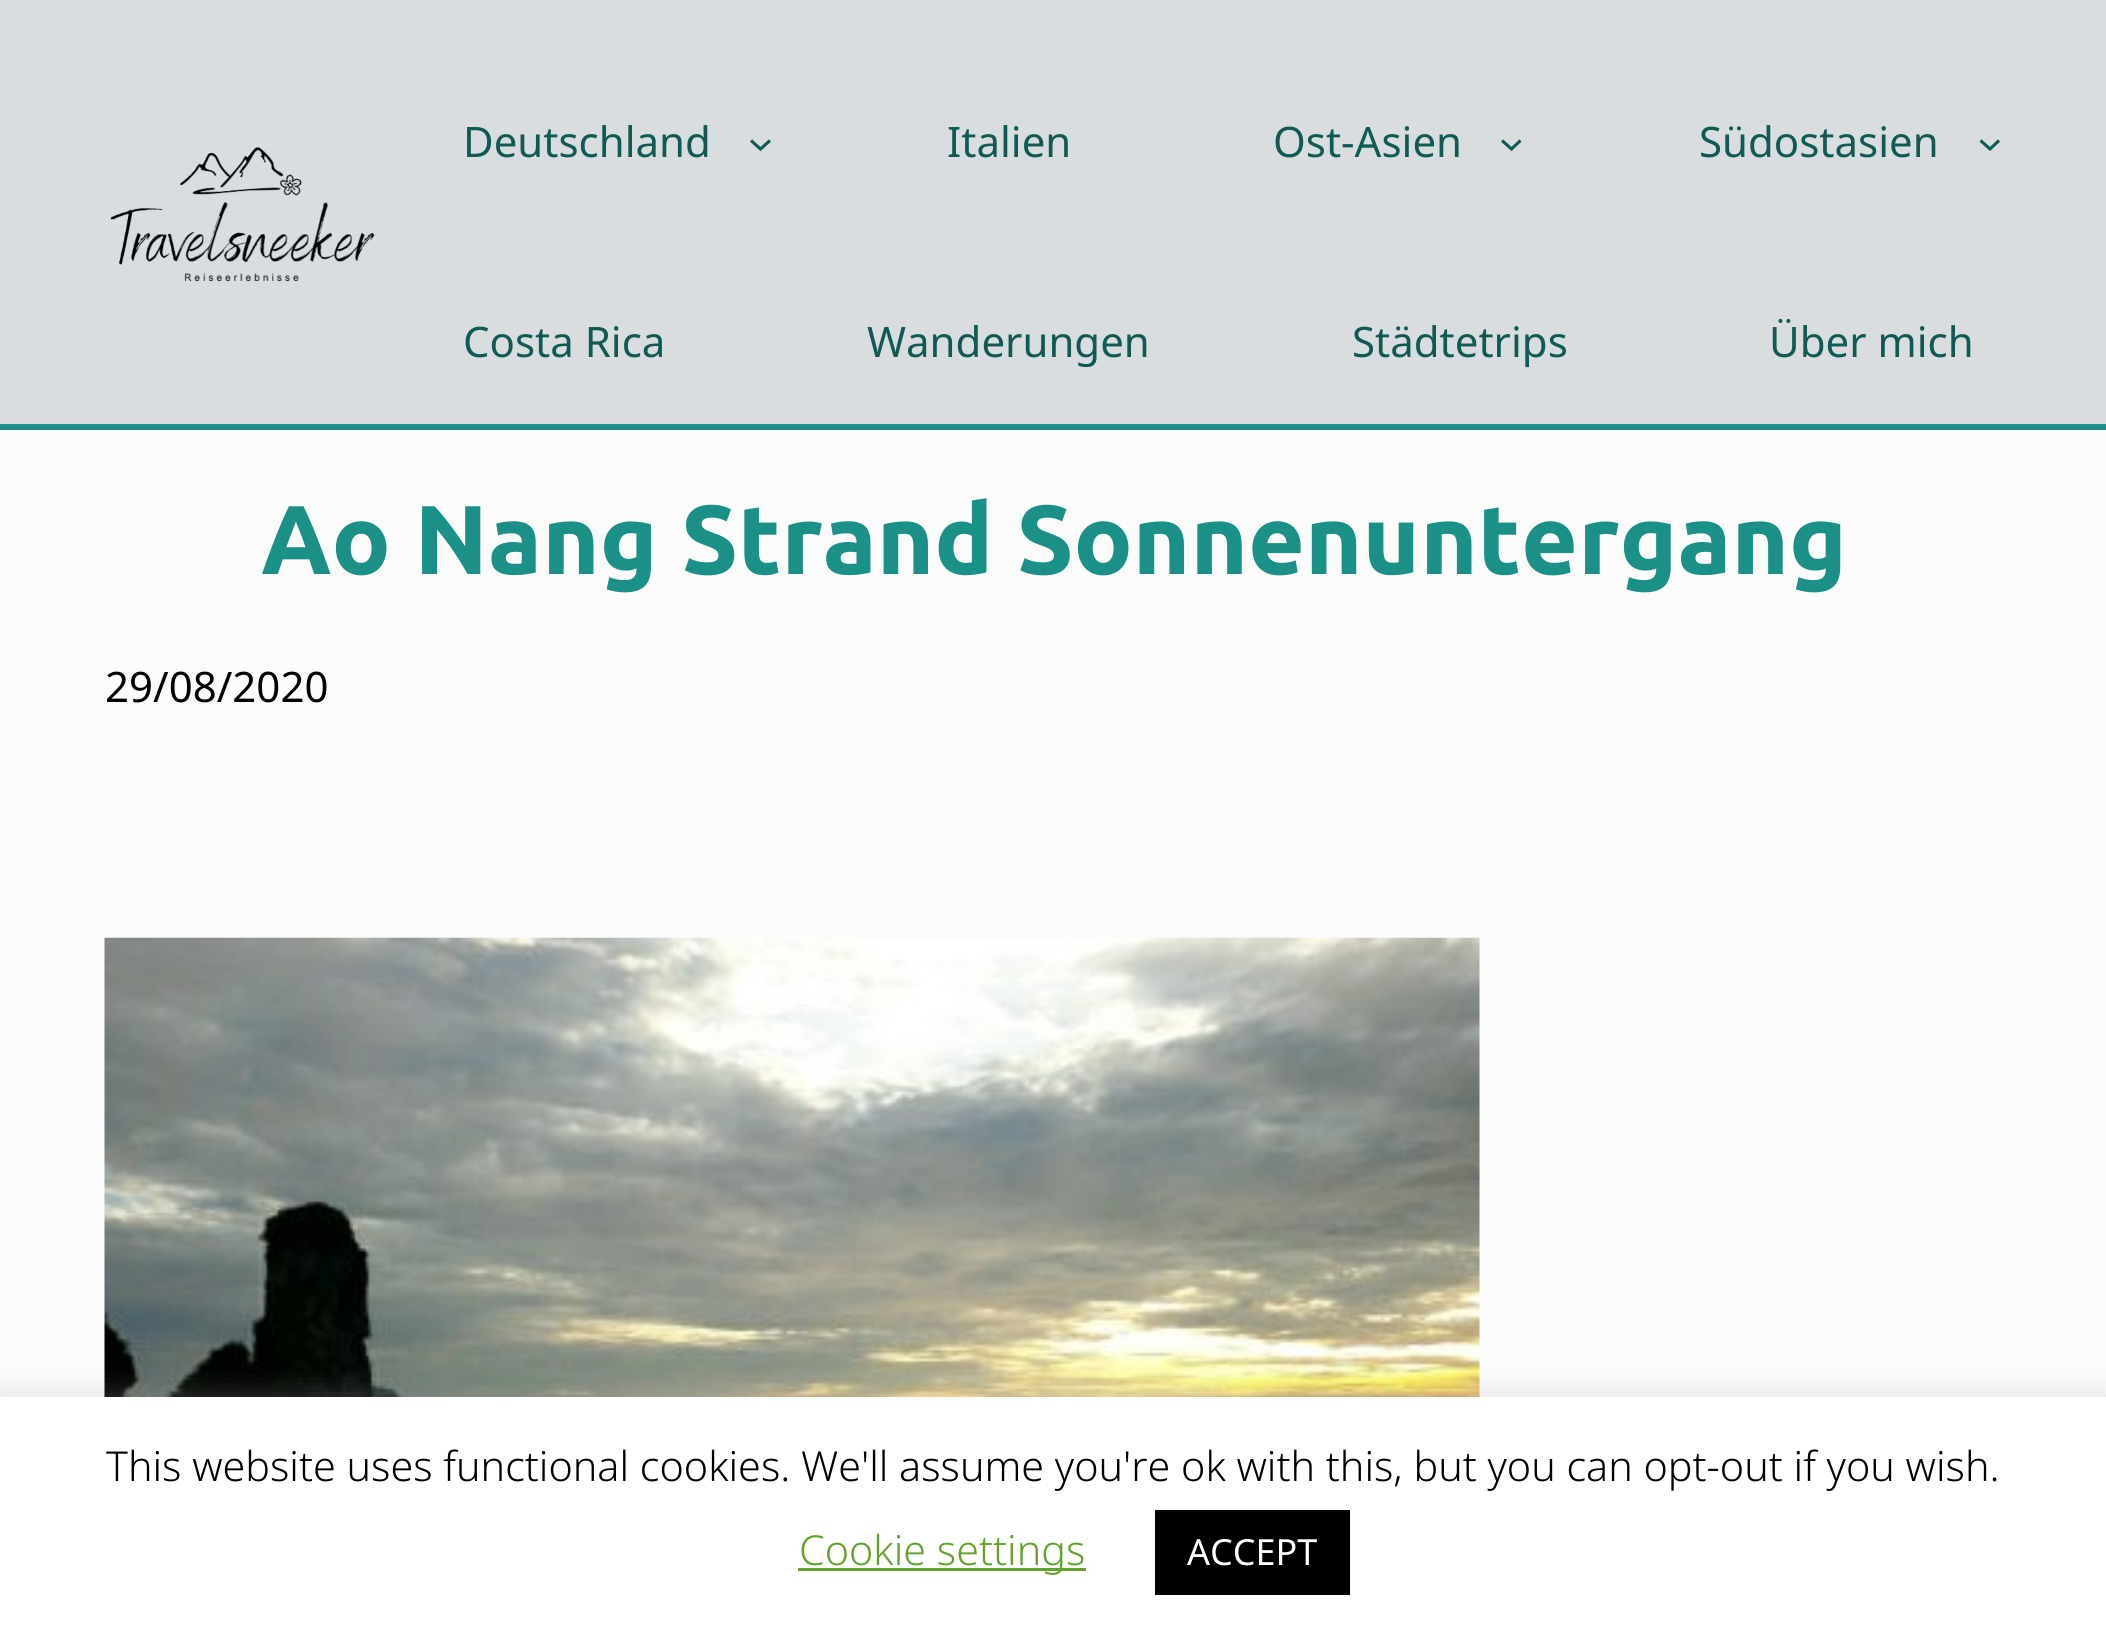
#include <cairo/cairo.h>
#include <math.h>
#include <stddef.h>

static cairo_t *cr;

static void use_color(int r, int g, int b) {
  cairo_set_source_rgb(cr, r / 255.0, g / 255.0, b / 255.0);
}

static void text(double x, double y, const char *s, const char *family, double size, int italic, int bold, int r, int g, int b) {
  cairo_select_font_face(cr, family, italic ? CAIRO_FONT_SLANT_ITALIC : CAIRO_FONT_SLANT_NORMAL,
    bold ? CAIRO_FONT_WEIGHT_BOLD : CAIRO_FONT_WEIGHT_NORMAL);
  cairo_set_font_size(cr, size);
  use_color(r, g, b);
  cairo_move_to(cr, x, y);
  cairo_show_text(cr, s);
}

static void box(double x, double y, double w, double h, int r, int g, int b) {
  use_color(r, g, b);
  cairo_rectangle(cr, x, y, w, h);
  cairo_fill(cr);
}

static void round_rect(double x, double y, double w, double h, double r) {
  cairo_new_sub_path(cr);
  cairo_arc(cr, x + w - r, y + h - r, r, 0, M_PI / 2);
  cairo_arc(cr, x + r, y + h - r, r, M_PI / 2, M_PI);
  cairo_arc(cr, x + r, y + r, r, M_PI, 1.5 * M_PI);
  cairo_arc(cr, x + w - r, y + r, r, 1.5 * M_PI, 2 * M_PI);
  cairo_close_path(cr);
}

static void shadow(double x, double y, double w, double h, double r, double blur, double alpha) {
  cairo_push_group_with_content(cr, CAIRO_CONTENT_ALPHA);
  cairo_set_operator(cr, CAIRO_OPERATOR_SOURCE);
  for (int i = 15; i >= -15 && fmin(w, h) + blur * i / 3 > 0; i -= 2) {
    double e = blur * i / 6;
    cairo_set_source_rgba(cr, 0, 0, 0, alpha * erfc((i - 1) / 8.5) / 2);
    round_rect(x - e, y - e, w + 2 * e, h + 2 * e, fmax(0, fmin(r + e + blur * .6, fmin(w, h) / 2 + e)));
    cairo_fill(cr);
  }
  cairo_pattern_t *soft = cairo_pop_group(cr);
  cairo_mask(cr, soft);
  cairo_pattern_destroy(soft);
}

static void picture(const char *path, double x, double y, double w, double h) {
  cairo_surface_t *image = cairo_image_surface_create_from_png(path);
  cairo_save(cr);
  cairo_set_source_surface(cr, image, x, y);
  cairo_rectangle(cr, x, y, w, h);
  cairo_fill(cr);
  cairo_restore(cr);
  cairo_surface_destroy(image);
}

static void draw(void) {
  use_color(251, 251, 252);
  cairo_paint(cr);
  box(0, 0, 2106, 424, 217, 221, 224);
  picture("img_01.png", 110, 147, 265, 135);
  cairo_new_path(cr);
  cairo_move_to(cr, 751, 140.5);
  cairo_line_to(cr, 760.5, 149);
  cairo_line_to(cr, 770, 140.5);
  use_color(16, 90, 84);
  cairo_set_line_width(cr, 3.1);
  cairo_stroke(cr);
  cairo_new_path(cr);
  cairo_move_to(cr, 1502, 140.5);
  cairo_line_to(cr, 1511.5, 149);
  cairo_line_to(cr, 1520.5, 140.5);
  cairo_stroke(cr);
  cairo_new_path(cr);
  cairo_move_to(cr, 1980.5, 140.5);
  cairo_line_to(cr, 1990, 149);
  cairo_line_to(cr, 1999, 140.5);
  cairo_stroke(cr);
  box(0, 424, 2106, 6, 26, 144, 135);
  picture("img_02.png", 104, 937, 1376, 460);
  use_color(172, 171, 171);
  shadow(0, 1394, 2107, 245, 0, 14, 0.3);
  box(0, 1397, 2106, 243, 255, 255, 255);
  box(798, 1568, 288, 3, 98, 163, 41);
  box(1155, 1510, 195, 85, 0, 0, 0);
  text(463, 157, "Deutschland", "Noto Sans", 42, 0, 0, 16, 90, 84);
  text(947, 157, "Italien", "Noto Sans", 42, 0, 0, 16, 90, 84);
  text(1273, 157, "Ost-Asien", "Noto Sans", 42, 0, 0, 16, 90, 84);
  text(1699, 157, "Südostasien", "Noto Sans", 42, 0, 0, 16, 90, 84);
  text(463, 357, "Costa Rica", "Noto Sans", 42, 0, 0, 16, 90, 84);
  text(867, 357, "Wanderungen", "Noto Sans", 42, 0, 0, 16, 90, 84);
  text(1352, 357, "Städtetrips", "Noto Sans", 42, 0, 0, 16, 90, 84);
  text(1769, 357, "Über mich", "Noto Sans", 42, 0, 0, 16, 90, 84);
  text(261, 574, "Ao Nang Strand Sonnenuntergang", "Ubuntu", 97.75, 0, 1, 26, 144, 135);
  text(105, 702, "29/08/2020", "Noto Sans", 42, 0, 0, 0, 0, 0);
  text(106, 1481, "This website uses functional cookies. We'll assume you're ok with this, but you can opt-out if you wish.", "Noto Sans Light", 41.25, 0, 0, 0, 0, 0);
  text(799, 1565, "Cookie settings", "Noto Sans Light", 41.25, 0, 0, 98, 163, 41);
  text(1187, 1565, "ACCEPT", "Noto Sans", 36, 0, 0, 255, 255, 255);
}

int main(void) {
  cairo_surface_t *surface = cairo_image_surface_create(CAIRO_FORMAT_RGB24, 2106, 1640);
  cr = cairo_create(surface);
  cairo_font_options_t *options = cairo_font_options_create();
  cairo_font_options_set_hint_metrics(options, CAIRO_HINT_METRICS_OFF);
  cairo_font_options_set_hint_style(options, CAIRO_HINT_STYLE_NONE);
  cairo_set_font_options(cr, options);
  cairo_set_miter_limit(cr, 4);
  draw();
  cairo_surface_write_to_png(surface, "out.png");
  cairo_font_options_destroy(options);
  cairo_destroy(cr);
  cairo_surface_destroy(surface);
  return 0;
}
